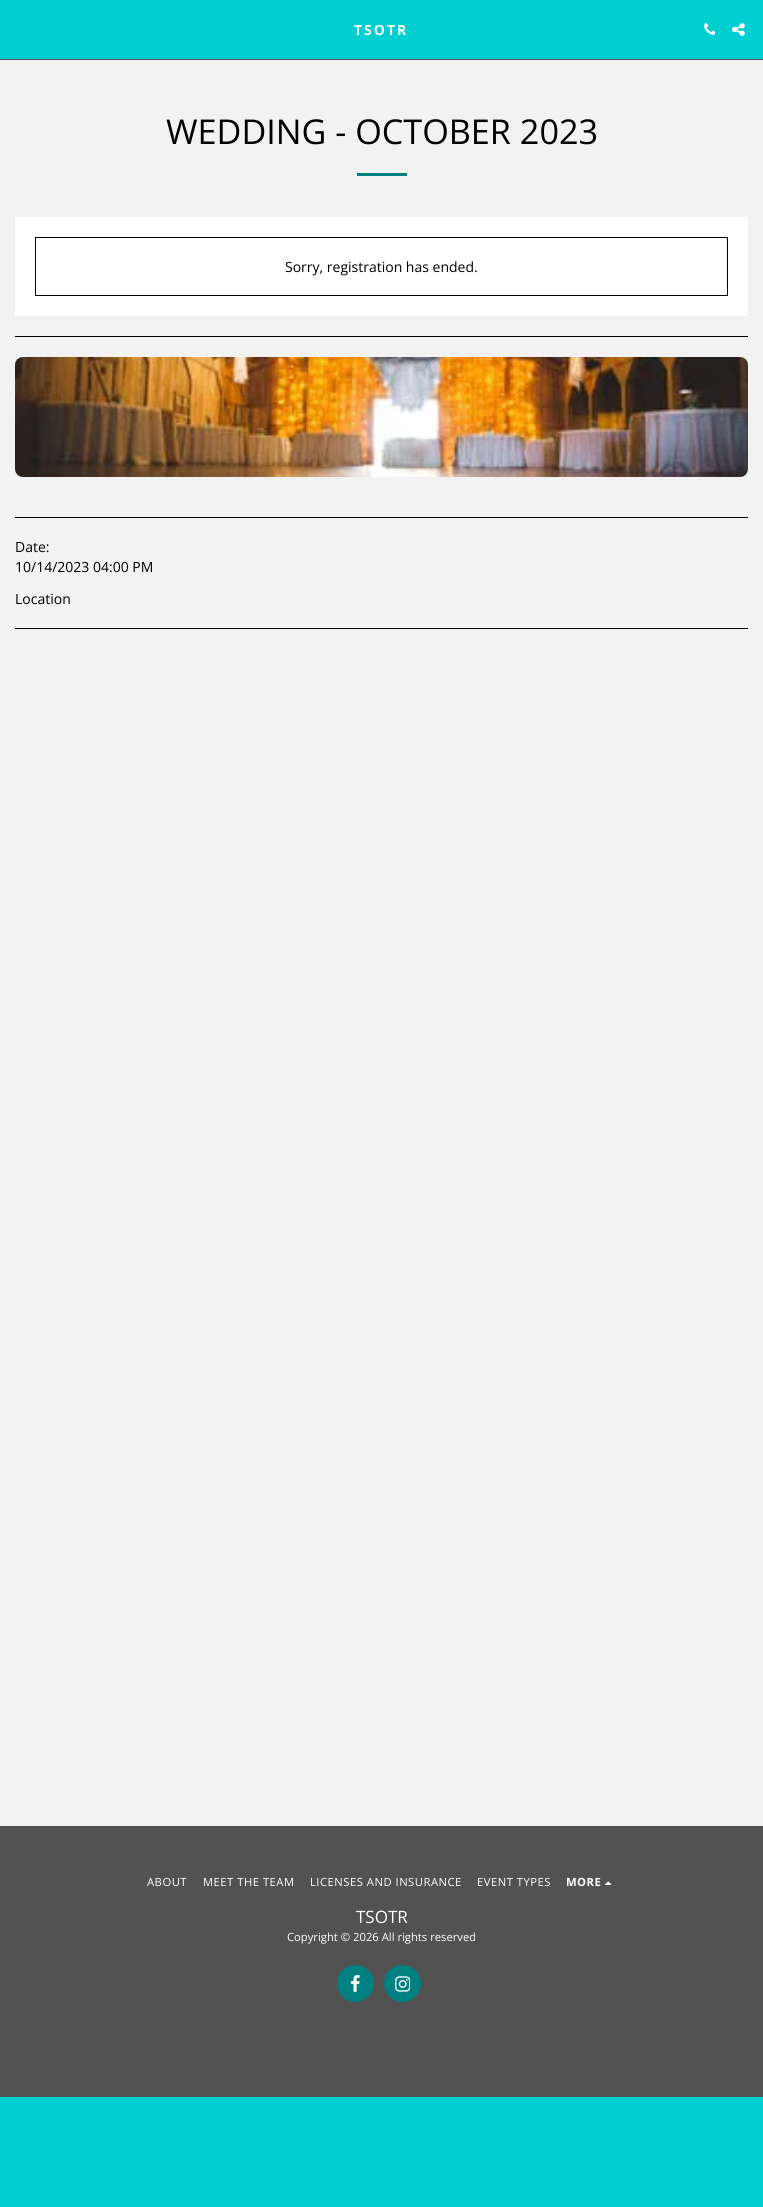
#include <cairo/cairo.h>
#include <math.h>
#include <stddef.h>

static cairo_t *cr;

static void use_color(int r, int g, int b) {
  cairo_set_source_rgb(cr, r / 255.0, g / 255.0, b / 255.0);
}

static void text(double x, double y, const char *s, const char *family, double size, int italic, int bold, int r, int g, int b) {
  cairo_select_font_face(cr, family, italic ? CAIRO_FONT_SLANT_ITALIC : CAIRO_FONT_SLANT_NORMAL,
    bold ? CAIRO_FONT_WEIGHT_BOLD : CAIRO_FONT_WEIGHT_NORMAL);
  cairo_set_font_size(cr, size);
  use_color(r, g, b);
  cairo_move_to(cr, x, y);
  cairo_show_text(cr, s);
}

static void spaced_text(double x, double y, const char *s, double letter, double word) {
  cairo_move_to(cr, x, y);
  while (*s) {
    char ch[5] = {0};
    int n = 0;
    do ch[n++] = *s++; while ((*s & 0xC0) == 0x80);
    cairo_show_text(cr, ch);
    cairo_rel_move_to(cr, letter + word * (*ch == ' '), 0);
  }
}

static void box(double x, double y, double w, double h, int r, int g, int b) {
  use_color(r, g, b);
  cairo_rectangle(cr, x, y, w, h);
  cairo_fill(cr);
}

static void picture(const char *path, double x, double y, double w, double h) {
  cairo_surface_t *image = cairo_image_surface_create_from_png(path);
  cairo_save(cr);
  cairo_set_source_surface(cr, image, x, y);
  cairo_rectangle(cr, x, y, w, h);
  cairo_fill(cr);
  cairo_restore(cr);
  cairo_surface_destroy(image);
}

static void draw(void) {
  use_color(0, 206, 209);
  cairo_paint(cr);
  box(0, 59, 763, 1, 82, 82, 82);
  picture("img_01.png", 704, 23, 11, 12);
  picture("img_02.png", 732, 23, 13, 13);
  box(0, 60, 763, 1766, 242, 242, 242);
  box(357, 173, 50, 3, 0, 128, 128);
  box(15, 217, 733, 99, 255, 255, 255);
  cairo_rectangle(cr, 35.5, 237.5, 692, 58);
  use_color(0, 0, 0);
  cairo_set_line_width(cr, 1);
  cairo_stroke(cr);
  box(15, 336, 733, 1, 0, 0, 0);
  picture("img_03.png", 15, 357, 733, 120);
  box(15, 517, 733, 1, 0, 0, 0);
  box(15, 628, 733, 1, 0, 0, 0);
  box(0, 1826, 763, 271, 82, 82, 82);
  picture("img_04.png", 605, 1881, 6, 4);
  use_color(0, 128, 128);
  cairo_arc(cr, 355.5, 1983.5, 18, 0, 2 * M_PI);
  cairo_fill_preserve(cr);
  cairo_stroke(cr);
  picture("img_05.png", 350, 1975, 10, 17);
  cairo_arc(cr, 402.5, 1983.5, 18, 0, 2 * M_PI);
  cairo_fill_preserve(cr);
  cairo_stroke(cr);
  picture("img_06.png", 395, 1976, 15, 16);
  cairo_select_font_face(cr, "Open Sans", CAIRO_FONT_SLANT_NORMAL, CAIRO_FONT_WEIGHT_BOLD);
  cairo_set_font_size(cr, 14);
  use_color(255, 255, 255);
  spaced_text(354, 35, "TSOTR", 2, 0);
  text(166, 144, "WEDDING - OCTOBER 2023", "Open Sans", 34.2, 0, 0, 0, 0, 0);
  text(285, 272, "Sorry, registration has ended.", "Open Sans", 14, 0, 0, 0, 0, 0);
  text(15, 552, "Date:", "Open Sans", 14, 0, 0, 0, 0, 0);
  text(15, 572, "10/14/2023 04:00 PM", "Open Sans", 14, 0, 0, 0, 0, 0);
  text(15, 604, "Location", "Open Sans", 14, 0, 0, 0, 0, 0);
  cairo_set_font_size(cr, 11.25);
  use_color(255, 255, 255);
  spaced_text(147, 1886, "ABOUT", 0.5, 0);
  spaced_text(203, 1886, "MEET THE TEAM", 0.5, 0);
  spaced_text(310, 1886, "LICENSES AND INSURANCE", 0.5, 0);
  spaced_text(477, 1886, "EVENT TYPES", 0.5, 0);
  cairo_select_font_face(cr, "Open Sans", CAIRO_FONT_SLANT_NORMAL, CAIRO_FONT_WEIGHT_BOLD);
  spaced_text(566, 1886, "MORE", 0.5, 0);
  text(356, 1923, "TSOTR", "Open Sans", 17, 0, 0, 255, 255, 255);
  text(287, 1941, "Copyright © 2026 All rights reserved", "Open Sans", 11.25, 0, 0, 255, 255, 255);
}

int main(void) {
  cairo_surface_t *surface = cairo_image_surface_create(CAIRO_FORMAT_RGB24, 763, 2207);
  cr = cairo_create(surface);
  cairo_font_options_t *options = cairo_font_options_create();
  cairo_font_options_set_hint_metrics(options, CAIRO_HINT_METRICS_OFF);
  cairo_font_options_set_hint_style(options, CAIRO_HINT_STYLE_NONE);
  cairo_set_font_options(cr, options);
  cairo_set_miter_limit(cr, 4);
  draw();
  cairo_surface_write_to_png(surface, "out.png");
  cairo_font_options_destroy(options);
  cairo_destroy(cr);
  cairo_surface_destroy(surface);
  return 0;
}
